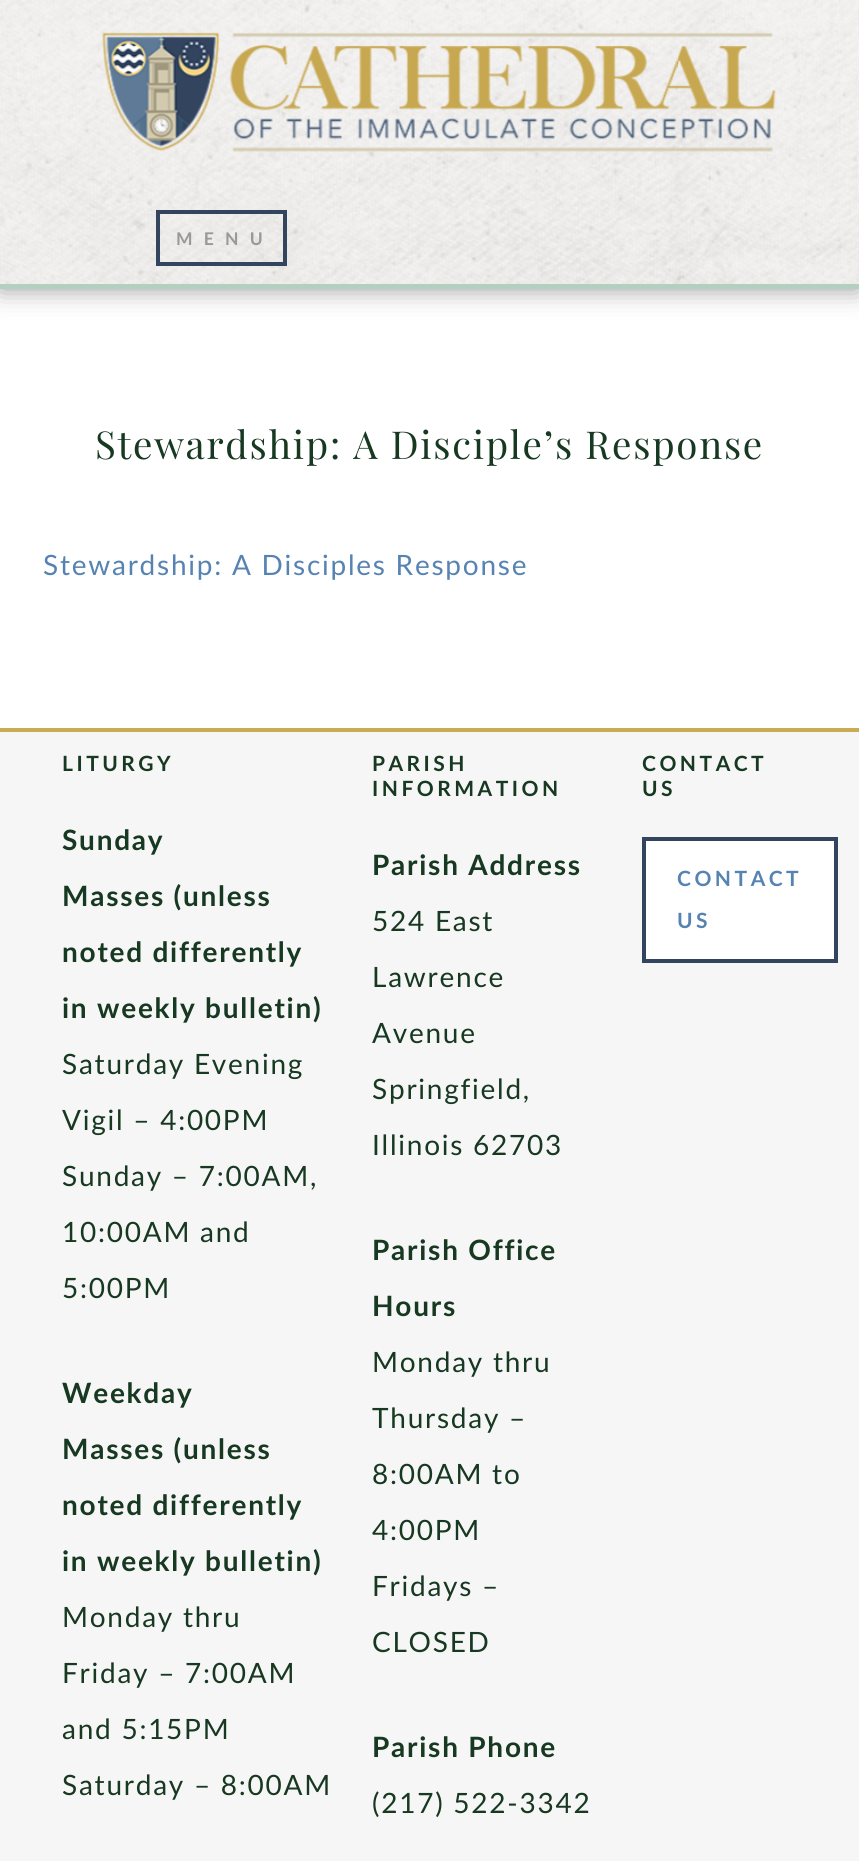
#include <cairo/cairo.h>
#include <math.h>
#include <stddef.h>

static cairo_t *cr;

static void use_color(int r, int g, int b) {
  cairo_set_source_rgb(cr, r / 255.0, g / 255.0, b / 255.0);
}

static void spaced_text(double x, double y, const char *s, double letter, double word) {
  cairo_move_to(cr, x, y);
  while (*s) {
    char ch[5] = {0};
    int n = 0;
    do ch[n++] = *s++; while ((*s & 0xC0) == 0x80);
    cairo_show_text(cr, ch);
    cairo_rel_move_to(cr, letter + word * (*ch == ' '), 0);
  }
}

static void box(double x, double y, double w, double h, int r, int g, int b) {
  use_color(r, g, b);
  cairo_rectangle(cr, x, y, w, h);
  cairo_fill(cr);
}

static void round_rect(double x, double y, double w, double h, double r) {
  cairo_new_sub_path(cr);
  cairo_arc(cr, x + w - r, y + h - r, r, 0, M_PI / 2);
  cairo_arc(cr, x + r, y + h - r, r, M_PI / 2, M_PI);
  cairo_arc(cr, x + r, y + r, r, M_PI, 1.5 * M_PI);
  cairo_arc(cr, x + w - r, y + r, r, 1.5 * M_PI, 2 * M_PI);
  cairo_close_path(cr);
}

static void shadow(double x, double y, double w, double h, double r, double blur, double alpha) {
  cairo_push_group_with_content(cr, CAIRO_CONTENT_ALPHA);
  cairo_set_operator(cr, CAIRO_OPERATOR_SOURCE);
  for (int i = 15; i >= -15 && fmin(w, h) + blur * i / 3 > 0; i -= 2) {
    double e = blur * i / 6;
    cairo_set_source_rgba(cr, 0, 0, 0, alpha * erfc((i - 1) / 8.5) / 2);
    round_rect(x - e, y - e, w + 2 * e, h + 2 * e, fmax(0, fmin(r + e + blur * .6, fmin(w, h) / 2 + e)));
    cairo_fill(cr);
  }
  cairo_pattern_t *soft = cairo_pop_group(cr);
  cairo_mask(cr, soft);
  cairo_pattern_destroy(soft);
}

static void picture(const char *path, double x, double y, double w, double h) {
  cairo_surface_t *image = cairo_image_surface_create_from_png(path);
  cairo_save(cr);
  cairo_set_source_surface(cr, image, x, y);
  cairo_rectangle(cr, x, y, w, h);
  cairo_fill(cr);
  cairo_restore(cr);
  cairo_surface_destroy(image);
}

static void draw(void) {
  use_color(255, 255, 255);
  cairo_paint(cr);
  use_color(153, 153, 153);
  shadow(0, 0, 859, 289, 0, 13, 1);
  picture("img_01.png", 0, 0, 859, 284);
  box(0, 284, 859, 5, 178, 207, 191);
  picture("img_02.png", 102, 32, 674, 120);
  cairo_rectangle(cr, 158, 212, 127, 52);
  use_color(50, 68, 94);
  cairo_set_line_width(cr, 4);
  cairo_stroke(cr);
  box(0, 732, 859, 1129, 246, 246, 246);
  box(0, 728, 859, 4, 202, 170, 82);
  use_color(255, 255, 255);
  cairo_rectangle(cr, 644, 839, 192, 122);
  cairo_fill_preserve(cr);
  use_color(50, 68, 94);
  cairo_stroke(cr);
  cairo_select_font_face(cr, "Lato", CAIRO_FONT_SLANT_NORMAL, CAIRO_FONT_WEIGHT_BOLD);
  cairo_set_font_size(cr, 17.5);
  use_color(153, 153, 153);
  spaced_text(176, 245, "M E N U", 3.5, 0);
  cairo_select_font_face(cr, "Playfair Display", CAIRO_FONT_SLANT_NORMAL, CAIRO_FONT_WEIGHT_NORMAL);
  cairo_set_font_size(cr, 38.5);
  use_color(23, 56, 33);
  spaced_text(95, 459, "Stewardship: A Disciple’s Response", 1.75, 0);
  cairo_select_font_face(cr, "Lato", CAIRO_FONT_SLANT_NORMAL, CAIRO_FONT_WEIGHT_NORMAL);
  cairo_set_font_size(cr, 28);
  use_color(86, 131, 178);
  spaced_text(43, 575, "Stewardship: A Disciples Response", 1.75, 0);
  cairo_select_font_face(cr, "Lato", CAIRO_FONT_SLANT_NORMAL, CAIRO_FONT_WEIGHT_BOLD);
  cairo_set_font_size(cr, 21);
  use_color(23, 56, 33);
  spaced_text(62, 771, "LITURGY", 3.5, 0);
  cairo_set_font_size(cr, 28);
  spaced_text(62, 850, "Sunday", 1.75, 0);
  spaced_text(62, 906, "Masses (unless", 1.75, 0);
  spaced_text(62, 962, "noted differently", 1.75, 0);
  spaced_text(62, 1018, "in weekly bulletin)", 1.75, 0);
  cairo_select_font_face(cr, "Lato", CAIRO_FONT_SLANT_NORMAL, CAIRO_FONT_WEIGHT_NORMAL);
  spaced_text(62, 1074, "Saturday Evening", 1.75, 0);
  spaced_text(62, 1130, "Vigil – 4:00PM", 1.75, 0);
  spaced_text(62, 1186, "Sunday – 7:00AM,", 1.75, 0);
  spaced_text(62, 1242, "10:00AM and", 1.75, 0);
  spaced_text(62, 1298, "5:00PM", 1.75, 0);
  cairo_select_font_face(cr, "Lato", CAIRO_FONT_SLANT_NORMAL, CAIRO_FONT_WEIGHT_BOLD);
  spaced_text(62, 1403, "Weekday", 1.75, 0);
  spaced_text(62, 1459, "Masses (unless", 1.75, 0);
  spaced_text(62, 1515, "noted differently", 1.75, 0);
  spaced_text(62, 1571, "in weekly bulletin)", 1.75, 0);
  cairo_select_font_face(cr, "Lato", CAIRO_FONT_SLANT_NORMAL, CAIRO_FONT_WEIGHT_NORMAL);
  spaced_text(62, 1627, "Monday thru", 1.75, 0);
  spaced_text(62, 1683, "Friday – 7:00AM", 1.75, 0);
  spaced_text(62, 1739, "and 5:15PM", 1.75, 0);
  spaced_text(62, 1795, "Saturday – 8:00AM", 1.75, 0);
  cairo_select_font_face(cr, "Lato", CAIRO_FONT_SLANT_NORMAL, CAIRO_FONT_WEIGHT_BOLD);
  cairo_set_font_size(cr, 21);
  spaced_text(372, 771, "PARISH", 3.5, 0);
  spaced_text(372, 796, "INFORMATION", 3.5, 0);
  cairo_set_font_size(cr, 28);
  spaced_text(372, 875, "Parish Address", 1.75, 0);
  cairo_select_font_face(cr, "Lato", CAIRO_FONT_SLANT_NORMAL, CAIRO_FONT_WEIGHT_NORMAL);
  spaced_text(372, 931, "524 East", 1.75, 0);
  spaced_text(372, 987, "Lawrence", 1.75, 0);
  spaced_text(372, 1043, "Avenue", 1.75, 0);
  spaced_text(372, 1099, "Springfield,", 1.75, 0);
  spaced_text(372, 1155, "Illinois 62703", 1.75, 0);
  cairo_select_font_face(cr, "Lato", CAIRO_FONT_SLANT_NORMAL, CAIRO_FONT_WEIGHT_BOLD);
  spaced_text(372, 1260, "Parish Office", 1.75, 0);
  spaced_text(372, 1316, "Hours", 1.75, 0);
  cairo_select_font_face(cr, "Lato", CAIRO_FONT_SLANT_NORMAL, CAIRO_FONT_WEIGHT_NORMAL);
  spaced_text(372, 1372, "Monday thru", 1.75, 0);
  spaced_text(372, 1428, "Thursday –", 1.75, 0);
  spaced_text(372, 1484, "8:00AM to", 1.75, 0);
  spaced_text(372, 1540, "4:00PM", 1.75, 0);
  spaced_text(372, 1596, "Fridays –", 1.75, 0);
  spaced_text(372, 1652, "CLOSED", 1.75, 0);
  cairo_select_font_face(cr, "Lato", CAIRO_FONT_SLANT_NORMAL, CAIRO_FONT_WEIGHT_BOLD);
  spaced_text(372, 1757, "Parish Phone", 1.75, 0);
  cairo_select_font_face(cr, "Lato", CAIRO_FONT_SLANT_NORMAL, CAIRO_FONT_WEIGHT_NORMAL);
  spaced_text(372, 1813, "(217) 522-3342", 1.75, 0);
  cairo_select_font_face(cr, "Lato", CAIRO_FONT_SLANT_NORMAL, CAIRO_FONT_WEIGHT_BOLD);
  cairo_set_font_size(cr, 21);
  spaced_text(642, 771, "CONTACT", 3.5, 0);
  spaced_text(642, 796, "US", 3.5, 0);
  use_color(86, 131, 178);
  spaced_text(677, 886, "CONTACT", 3.5, 0);
  spaced_text(677, 928, "US", 3.5, 0);
}

int main(void) {
  cairo_surface_t *surface = cairo_image_surface_create(CAIRO_FORMAT_RGB24, 859, 1861);
  cr = cairo_create(surface);
  cairo_font_options_t *options = cairo_font_options_create();
  cairo_font_options_set_hint_metrics(options, CAIRO_HINT_METRICS_OFF);
  cairo_font_options_set_hint_style(options, CAIRO_HINT_STYLE_NONE);
  cairo_set_font_options(cr, options);
  cairo_set_miter_limit(cr, 4);
  draw();
  cairo_surface_write_to_png(surface, "out.png");
  cairo_font_options_destroy(options);
  cairo_destroy(cr);
  cairo_surface_destroy(surface);
  return 0;
}
